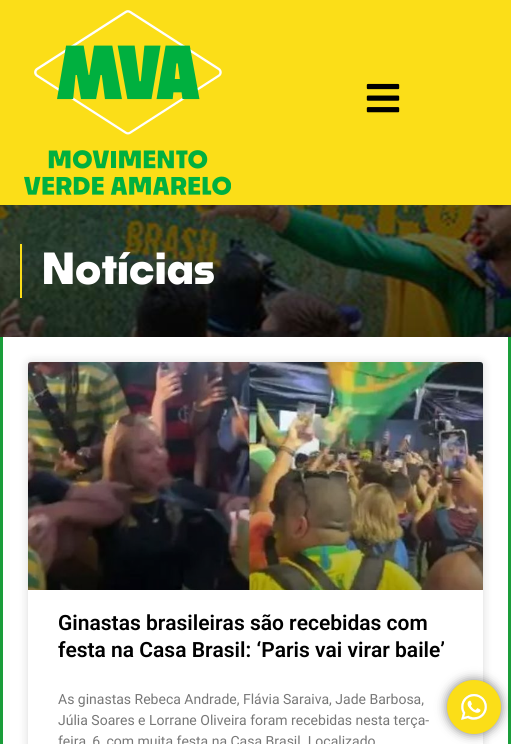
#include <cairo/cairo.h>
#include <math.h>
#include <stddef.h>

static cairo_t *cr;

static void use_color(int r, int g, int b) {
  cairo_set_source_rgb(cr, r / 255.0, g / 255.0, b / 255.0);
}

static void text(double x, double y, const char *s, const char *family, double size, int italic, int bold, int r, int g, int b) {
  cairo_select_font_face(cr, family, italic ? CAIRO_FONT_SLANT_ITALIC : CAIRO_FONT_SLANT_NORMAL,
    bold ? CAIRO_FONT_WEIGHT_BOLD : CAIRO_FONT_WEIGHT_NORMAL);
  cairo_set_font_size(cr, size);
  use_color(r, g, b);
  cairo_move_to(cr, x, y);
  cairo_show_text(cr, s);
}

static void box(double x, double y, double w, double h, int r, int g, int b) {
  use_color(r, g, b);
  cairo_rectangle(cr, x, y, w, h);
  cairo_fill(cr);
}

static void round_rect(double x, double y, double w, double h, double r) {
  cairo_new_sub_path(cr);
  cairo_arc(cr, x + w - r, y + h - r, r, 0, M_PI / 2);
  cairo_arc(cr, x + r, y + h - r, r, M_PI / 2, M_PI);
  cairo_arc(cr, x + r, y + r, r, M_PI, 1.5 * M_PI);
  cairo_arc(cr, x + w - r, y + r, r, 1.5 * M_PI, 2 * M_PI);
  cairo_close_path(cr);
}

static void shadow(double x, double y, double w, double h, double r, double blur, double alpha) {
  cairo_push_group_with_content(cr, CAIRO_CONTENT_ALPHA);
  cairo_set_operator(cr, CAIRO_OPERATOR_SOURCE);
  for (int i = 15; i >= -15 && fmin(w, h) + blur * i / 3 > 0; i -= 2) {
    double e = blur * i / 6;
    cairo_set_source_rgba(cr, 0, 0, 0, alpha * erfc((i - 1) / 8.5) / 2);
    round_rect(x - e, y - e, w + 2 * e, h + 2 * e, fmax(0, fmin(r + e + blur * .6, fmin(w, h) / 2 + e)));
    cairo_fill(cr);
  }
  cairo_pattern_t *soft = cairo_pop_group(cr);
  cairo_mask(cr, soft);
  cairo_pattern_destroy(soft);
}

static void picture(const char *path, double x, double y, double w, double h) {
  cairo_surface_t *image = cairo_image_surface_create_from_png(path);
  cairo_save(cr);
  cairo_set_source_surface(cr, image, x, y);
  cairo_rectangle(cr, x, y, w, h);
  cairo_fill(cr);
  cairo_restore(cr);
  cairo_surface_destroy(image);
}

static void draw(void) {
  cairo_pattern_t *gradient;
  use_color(26, 157, 58);
  cairo_paint(cr);
  box(0, 0, 511, 205, 251, 222, 24);
  picture("img_01.png", 24, 10, 207, 185);
  picture("img_02.png", 366, 83, 34, 30);
  picture("img_03.png", 0, 205, 511, 132);
  box(20, 244, 2, 54, 251, 222, 24);
  box(3, 337, 505, 407, 255, 255, 255);
  use_color(0, 0, 0);
  shadow(28, 362, 455, 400, 3, 5, 0.15);
  use_color(255, 255, 255);
  round_rect(28, 362, 455, 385, 3);
  cairo_fill(cr);
  picture("img_04.png", 28, 362, 455, 228);
  gradient = cairo_pattern_create_linear(256, 590, 256, 362);
  cairo_pattern_add_color_stop_rgba(gradient, 0, 0, 0, 0, 0.35);
  cairo_pattern_add_color_stop_rgba(gradient, 0.75, 0, 0, 0, 0);
  cairo_set_source(cr, gradient);
  cairo_pattern_destroy(gradient);
  cairo_rectangle(cr, 28, 430, 455, 160);
  cairo_fill(cr);
  use_color(0, 0, 0);
  shadow(447, 680, 54, 54, 27, 5.5, 0.5);
  use_color(251, 222, 24);
  cairo_arc(cr, 474, 707, 27, 0, 2 * M_PI);
  cairo_fill(cr);
  picture("img_05.png", 461, 694, 26, 26);
  text(42, 284, "Notícias", "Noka", 42, 0, 1, 255, 255, 255);
  text(58, 630, "Ginastas brasileiras são recebidas com", "Roboto SemiBold", 21, 0, 0, 0, 0, 0);
  text(58, 657, "festa na Casa Brasil: ‘Paris vai virar baile’", "Roboto SemiBold", 21, 0, 0, 0, 0, 0);
  text(58, 704, "As ginastas Rebeca Andrade, Flávia Saraiva, Jade Barbosa,", "Roboto", 14, 0, 0, 119, 119, 119);
  text(58, 725, "Júlia Soares e Lorrane Oliveira foram recebidas nesta terça-", "Roboto", 14, 0, 0, 119, 119, 119);
  text(58, 746, "feira, 6, com muita festa na Casa Brasil. Localizado", "Roboto", 14, 0, 0, 119, 119, 119);
}

int main(void) {
  cairo_surface_t *surface = cairo_image_surface_create(CAIRO_FORMAT_RGB24, 511, 744);
  cr = cairo_create(surface);
  cairo_font_options_t *options = cairo_font_options_create();
  cairo_font_options_set_hint_metrics(options, CAIRO_HINT_METRICS_OFF);
  cairo_font_options_set_hint_style(options, CAIRO_HINT_STYLE_NONE);
  cairo_set_font_options(cr, options);
  cairo_set_miter_limit(cr, 4);
  draw();
  cairo_surface_write_to_png(surface, "out.png");
  cairo_font_options_destroy(options);
  cairo_destroy(cr);
  cairo_surface_destroy(surface);
  return 0;
}
